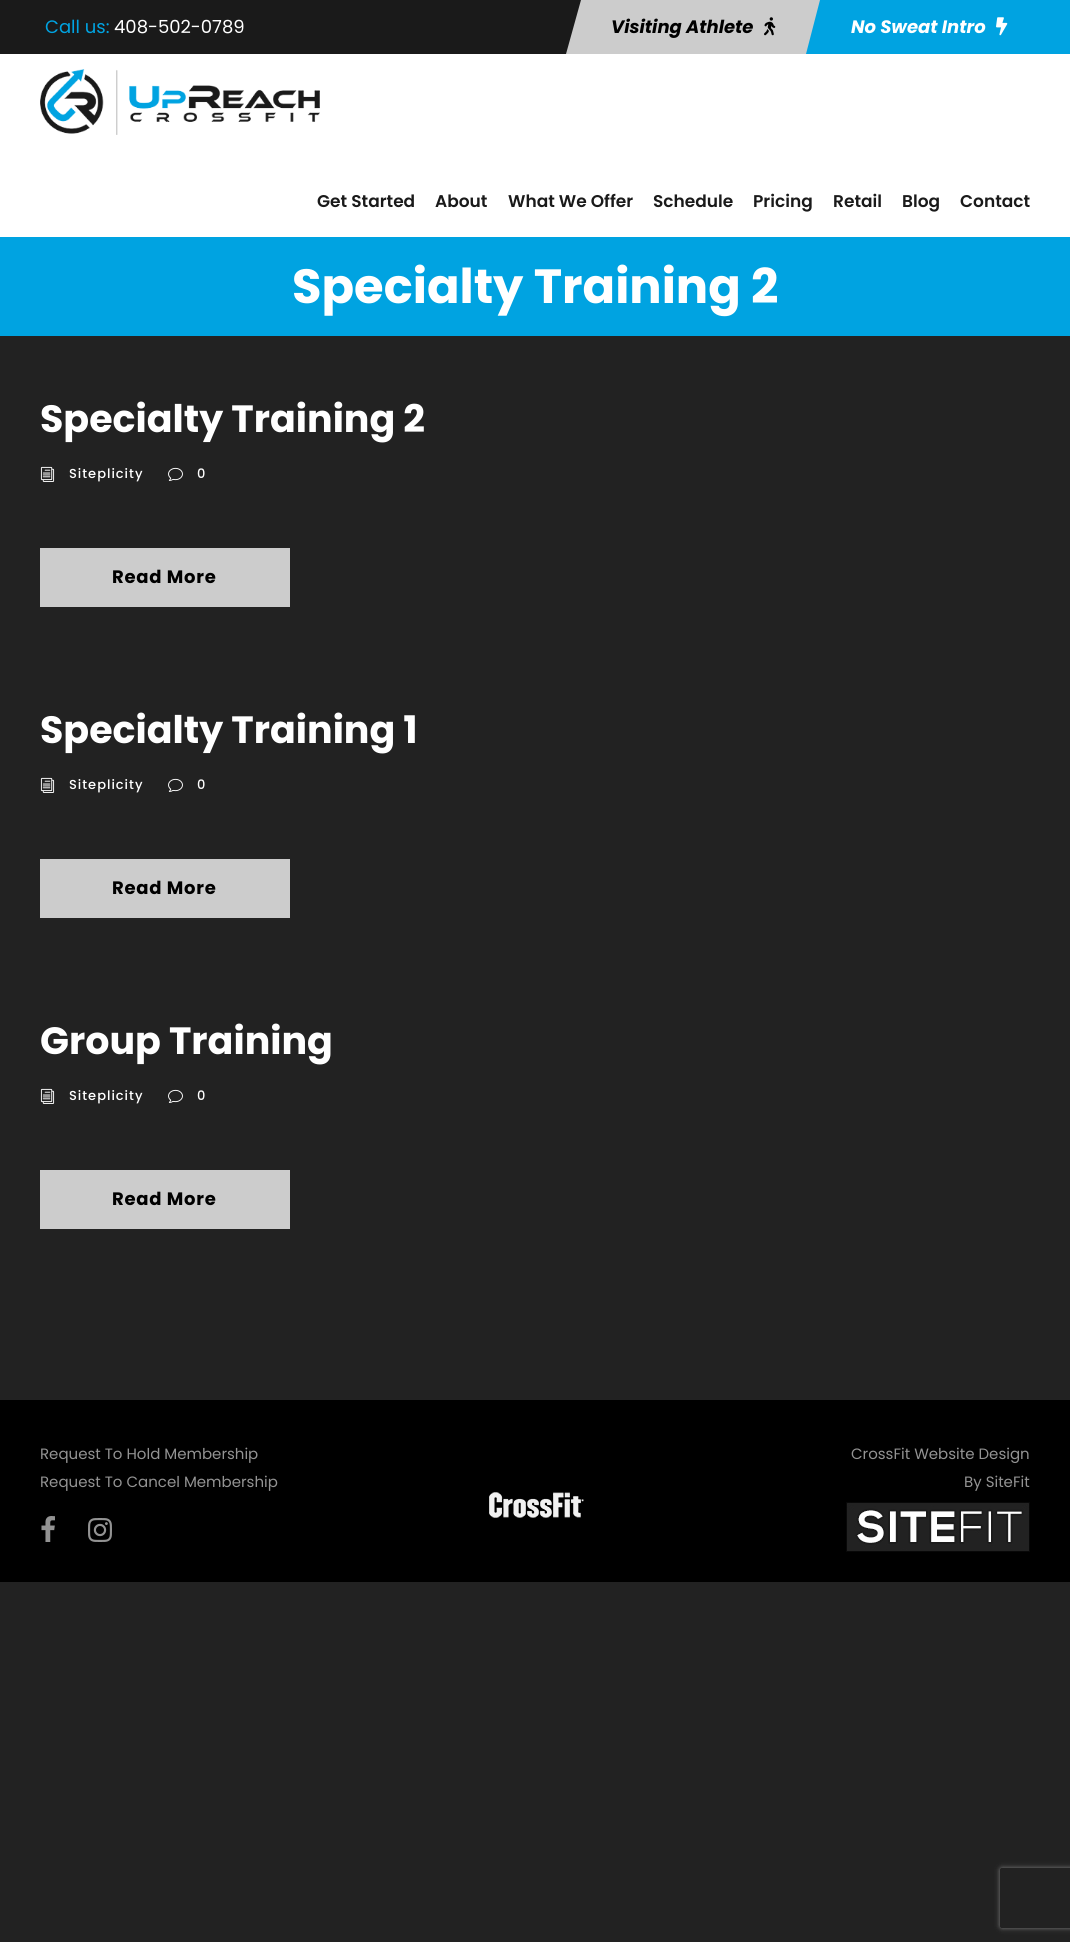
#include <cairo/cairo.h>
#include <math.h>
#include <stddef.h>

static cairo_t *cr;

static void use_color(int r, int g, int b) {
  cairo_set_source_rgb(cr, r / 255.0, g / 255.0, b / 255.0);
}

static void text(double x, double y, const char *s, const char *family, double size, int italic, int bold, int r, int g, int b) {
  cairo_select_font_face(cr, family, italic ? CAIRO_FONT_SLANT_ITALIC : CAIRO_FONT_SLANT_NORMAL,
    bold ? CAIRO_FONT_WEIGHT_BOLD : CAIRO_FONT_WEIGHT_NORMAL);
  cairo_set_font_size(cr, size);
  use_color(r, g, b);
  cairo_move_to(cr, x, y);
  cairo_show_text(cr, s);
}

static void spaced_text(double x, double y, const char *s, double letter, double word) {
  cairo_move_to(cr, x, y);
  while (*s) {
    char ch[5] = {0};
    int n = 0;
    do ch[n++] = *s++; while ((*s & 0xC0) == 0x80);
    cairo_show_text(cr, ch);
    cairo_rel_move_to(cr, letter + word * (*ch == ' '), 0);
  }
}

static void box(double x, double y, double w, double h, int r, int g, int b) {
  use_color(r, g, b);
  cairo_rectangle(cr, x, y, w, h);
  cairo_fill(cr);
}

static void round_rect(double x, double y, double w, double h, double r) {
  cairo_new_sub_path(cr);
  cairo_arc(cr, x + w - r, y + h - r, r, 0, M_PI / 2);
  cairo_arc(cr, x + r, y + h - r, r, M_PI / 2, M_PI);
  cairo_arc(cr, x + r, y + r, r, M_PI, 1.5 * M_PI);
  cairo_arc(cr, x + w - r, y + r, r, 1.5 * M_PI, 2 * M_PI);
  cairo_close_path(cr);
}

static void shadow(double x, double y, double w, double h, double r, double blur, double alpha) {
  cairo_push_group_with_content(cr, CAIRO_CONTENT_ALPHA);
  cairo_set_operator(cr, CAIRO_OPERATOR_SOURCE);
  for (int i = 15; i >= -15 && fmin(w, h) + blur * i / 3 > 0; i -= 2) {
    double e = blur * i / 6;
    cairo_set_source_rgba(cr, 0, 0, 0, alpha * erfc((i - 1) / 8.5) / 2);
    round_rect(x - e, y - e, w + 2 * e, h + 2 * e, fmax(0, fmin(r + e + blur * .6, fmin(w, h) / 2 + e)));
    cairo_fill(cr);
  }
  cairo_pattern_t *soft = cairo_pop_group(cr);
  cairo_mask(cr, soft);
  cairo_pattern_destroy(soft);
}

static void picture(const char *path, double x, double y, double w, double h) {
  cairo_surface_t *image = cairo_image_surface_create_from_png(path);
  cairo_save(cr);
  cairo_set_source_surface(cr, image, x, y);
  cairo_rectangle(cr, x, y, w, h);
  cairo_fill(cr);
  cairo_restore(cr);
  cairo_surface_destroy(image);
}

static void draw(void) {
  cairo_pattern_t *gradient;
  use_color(34, 34, 34);
  cairo_paint(cr);
  box(0, 0, 581, 54, 26, 26, 26);
  use_color(204, 204, 204);
  cairo_new_path(cr);
  cairo_move_to(cr, 581, 0);
  cairo_line_to(cr, 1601, 0);
  cairo_line_to(cr, 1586, 54);
  cairo_line_to(cr, 566, 54);
  cairo_close_path(cr);
  cairo_fill(cr);
  picture("img_01.png", 764, 17, 12, 19);
  gradient = cairo_pattern_create_linear(-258, 27, 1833, 27);
  cairo_pattern_add_color_stop_rgba(gradient, 0, 0.333, 0.333, 0.333, 1);
  cairo_pattern_add_color_stop_rgba(gradient, 0.5, 0.467, 0.467, 0.467, 1);
  cairo_pattern_add_color_stop_rgba(gradient, 0.5, 0, 0.639, 0.882, 1);
  cairo_pattern_add_color_stop_rgba(gradient, 1, 0, 0.639, 0.882, 1);
  cairo_set_source(cr, gradient);
  cairo_pattern_destroy(gradient);
  cairo_new_path(cr);
  cairo_move_to(cr, 820, 0);
  cairo_line_to(cr, 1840, 0);
  cairo_line_to(cr, 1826, 54);
  cairo_line_to(cr, 806, 54);
  cairo_close_path(cr);
  cairo_fill(cr);
  picture("img_02.png", 996, 17, 12, 19);
  box(0, 54, 1070, 183, 255, 255, 255);
  picture("img_03.png", 40, 69, 280, 66);
  box(0, 237, 1070, 99, 0, 163, 225);
  picture("img_04.png", 40, 466, 15, 16);
  picture("img_05.png", 168, 467, 15, 14);
  box(40, 548, 250, 59, 204, 204, 204);
  picture("img_04.png", 40, 777, 15, 16);
  picture("img_05.png", 168, 778, 15, 14);
  box(40, 859, 250, 59, 204, 204, 204);
  picture("img_04.png", 40, 1088, 15, 16);
  picture("img_05.png", 168, 1089, 15, 14);
  box(40, 1170, 250, 59, 204, 204, 204);
  box(0, 1400, 1070, 182, 0, 0, 0);
  picture("img_06.png", 41, 1516, 14, 26);
  picture("img_07.png", 88, 1518, 24, 24);
  picture("img_08.png", 846, 1502, 184, 50);
  picture("img_09.png", 489, 1492, 95, 26);
  cairo_save(cr);
  cairo_set_fill_rule(cr, CAIRO_FILL_RULE_EVEN_ODD);
  cairo_new_path(cr);
  cairo_move_to(cr, 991, 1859);
  cairo_line_to(cr, 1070, 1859);
  cairo_line_to(cr, 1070, 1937);
  cairo_line_to(cr, 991, 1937);
  cairo_close_path(cr);
  cairo_move_to(cr, 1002, 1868);
  cairo_line_to(cr, 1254, 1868);
  cairo_curve_to(cr, 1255, 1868, 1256, 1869, 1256, 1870);
  cairo_line_to(cr, 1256, 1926);
  cairo_curve_to(cr, 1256, 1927, 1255, 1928, 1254, 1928);
  cairo_line_to(cr, 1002, 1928);
  cairo_curve_to(cr, 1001, 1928, 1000, 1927, 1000, 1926);
  cairo_line_to(cr, 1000, 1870);
  cairo_curve_to(cr, 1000, 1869, 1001, 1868, 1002, 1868);
  cairo_close_path(cr);
  cairo_clip(cr);
  use_color(128, 128, 128);
  shadow(1000, 1868, 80, 60, 2, 2.5, 1);
  cairo_restore(cr);
  text(45, 33, "Call us:", "Poppins", 18, 0, 0, 0, 163, 225);
  text(114, 33, "408-502-0789", "Poppins", 18, 0, 0, 255, 255, 255);
  text(611, 33, "Visiting Athlete", "Poppins", 18, 1, 1, 0, 0, 0);
  text(851, 33, "No Sweat Intro", "Poppins", 18, 1, 1, 255, 255, 255);
  text(317, 207, "Get Started", "Poppins SemiBold", 17, 0, 0, 26, 26, 26);
  text(435, 207, "About", "Poppins SemiBold", 17, 0, 0, 26, 26, 26);
  text(508, 207, "What We Offer", "Poppins SemiBold", 17, 0, 0, 26, 26, 26);
  text(653, 207, "Schedule", "Poppins SemiBold", 17, 0, 0, 26, 26, 26);
  text(753, 207, "Pricing", "Poppins SemiBold", 17, 0, 0, 26, 26, 26);
  text(833, 207, "Retail", "Poppins SemiBold", 17, 0, 0, 26, 26, 26);
  text(902, 207, "Blog", "Poppins SemiBold", 17, 0, 0, 26, 26, 26);
  text(960, 207, "Contact", "Poppins SemiBold", 17, 0, 0, 26, 26, 26);
  text(292, 303, "Specialty Training 2", "Poppins", 48, 0, 1, 255, 255, 255);
  text(40, 432, "Specialty Training 2", "Poppins", 38, 0, 1, 255, 255, 255);
  cairo_select_font_face(cr, "Poppins Medium", CAIRO_FONT_SLANT_NORMAL, CAIRO_FONT_WEIGHT_NORMAL);
  cairo_set_font_size(cr, 13);
  spaced_text(69, 478, "Siteplicity", 1, 0);
  spaced_text(197, 478, "0", 1, 0);
  cairo_select_font_face(cr, "Poppins", CAIRO_FONT_SLANT_NORMAL, CAIRO_FONT_WEIGHT_BOLD);
  cairo_set_font_size(cr, 18);
  use_color(0, 0, 0);
  spaced_text(112, 583, "Read More", 0.75, 0);
  text(40, 743, "Specialty Training 1", "Poppins", 38, 0, 1, 255, 255, 255);
  cairo_select_font_face(cr, "Poppins Medium", CAIRO_FONT_SLANT_NORMAL, CAIRO_FONT_WEIGHT_NORMAL);
  cairo_set_font_size(cr, 13);
  spaced_text(69, 789, "Siteplicity", 1, 0);
  spaced_text(197, 789, "0", 1, 0);
  cairo_select_font_face(cr, "Poppins", CAIRO_FONT_SLANT_NORMAL, CAIRO_FONT_WEIGHT_BOLD);
  cairo_set_font_size(cr, 18);
  use_color(0, 0, 0);
  spaced_text(112, 894, "Read More", 0.75, 0);
  text(40, 1054, "Group Training", "Poppins", 38, 0, 1, 255, 255, 255);
  cairo_select_font_face(cr, "Poppins Medium", CAIRO_FONT_SLANT_NORMAL, CAIRO_FONT_WEIGHT_NORMAL);
  cairo_set_font_size(cr, 13);
  spaced_text(69, 1100, "Siteplicity", 1, 0);
  spaced_text(197, 1100, "0", 1, 0);
  cairo_select_font_face(cr, "Poppins", CAIRO_FONT_SLANT_NORMAL, CAIRO_FONT_WEIGHT_BOLD);
  cairo_set_font_size(cr, 18);
  use_color(0, 0, 0);
  spaced_text(112, 1205, "Read More", 0.75, 0);
  text(40, 1459, "Request To Hold Membership", "Poppins", 15, 0, 0, 147, 147, 147);
  text(40, 1487, "Request To Cancel Membership", "Poppins", 15, 0, 0, 147, 147, 147);
  text(851, 1459, "CrossFit Website Design", "Poppins", 15, 0, 0, 147, 147, 147);
  text(964, 1487, "By SiteFit", "Poppins", 15, 0, 0, 147, 147, 147);
}

int main(void) {
  cairo_surface_t *surface = cairo_image_surface_create(CAIRO_FORMAT_RGB24, 1070, 1942);
  cr = cairo_create(surface);
  cairo_font_options_t *options = cairo_font_options_create();
  cairo_font_options_set_hint_metrics(options, CAIRO_HINT_METRICS_OFF);
  cairo_font_options_set_hint_style(options, CAIRO_HINT_STYLE_NONE);
  cairo_set_font_options(cr, options);
  cairo_set_miter_limit(cr, 4);
  draw();
  cairo_surface_write_to_png(surface, "out.png");
  cairo_font_options_destroy(options);
  cairo_destroy(cr);
  cairo_surface_destroy(surface);
  return 0;
}
